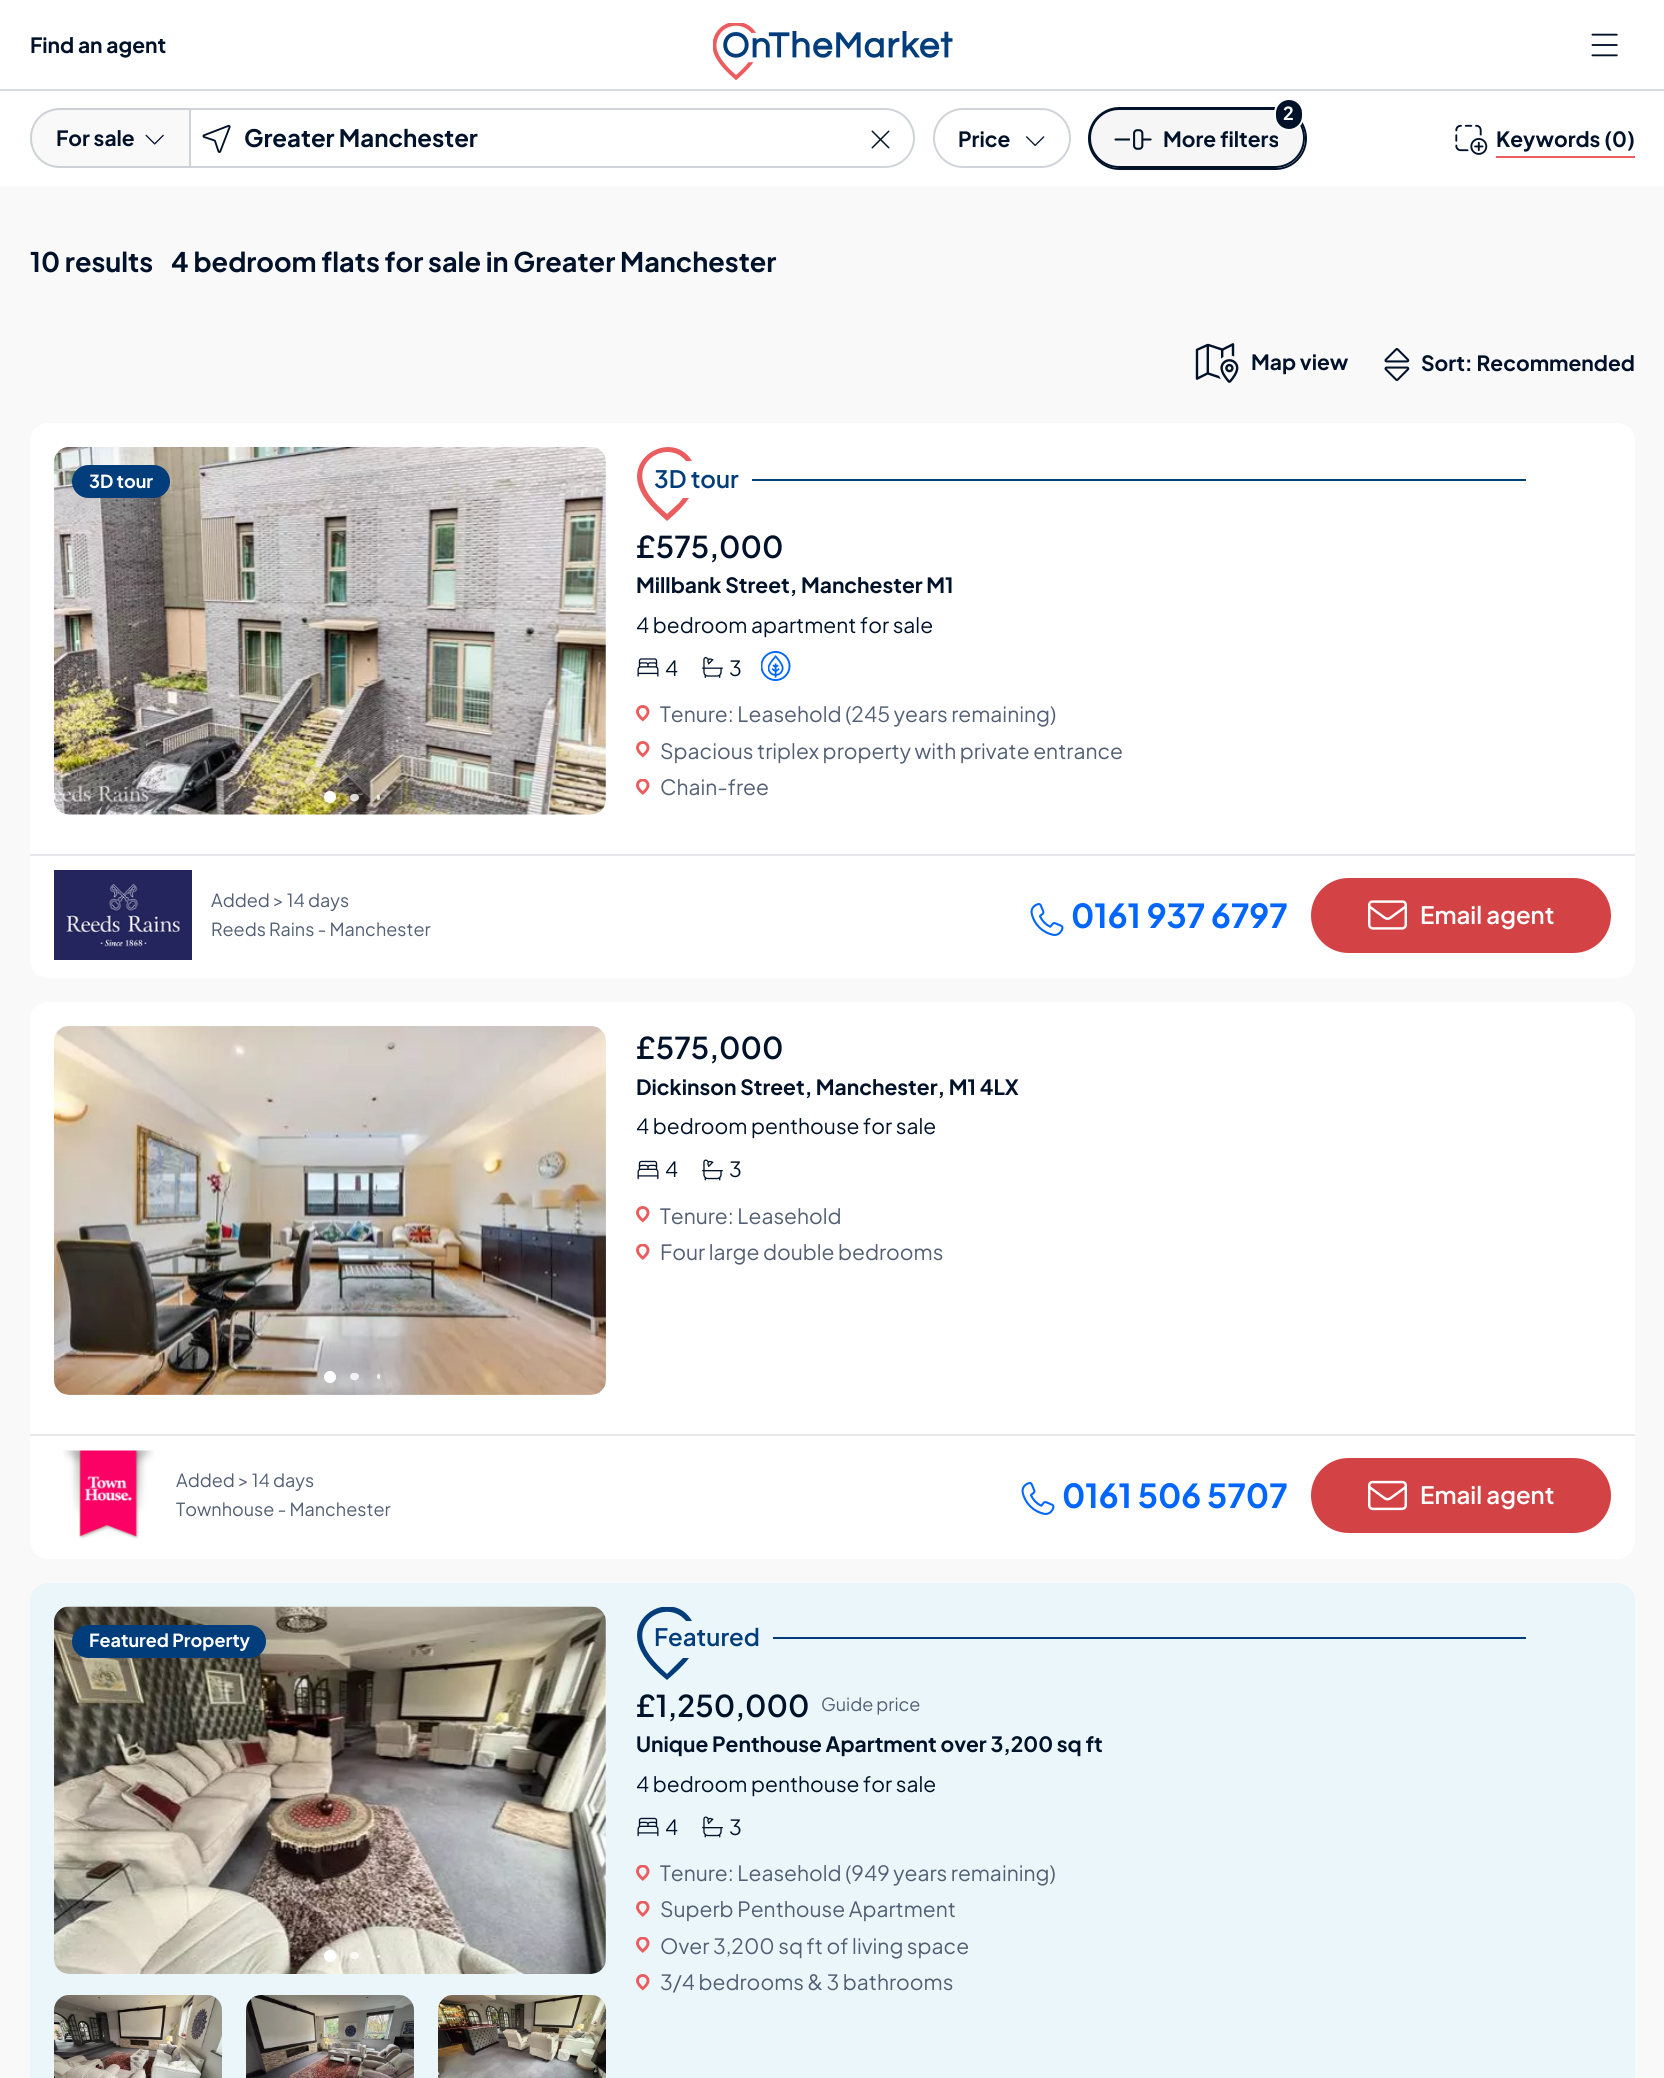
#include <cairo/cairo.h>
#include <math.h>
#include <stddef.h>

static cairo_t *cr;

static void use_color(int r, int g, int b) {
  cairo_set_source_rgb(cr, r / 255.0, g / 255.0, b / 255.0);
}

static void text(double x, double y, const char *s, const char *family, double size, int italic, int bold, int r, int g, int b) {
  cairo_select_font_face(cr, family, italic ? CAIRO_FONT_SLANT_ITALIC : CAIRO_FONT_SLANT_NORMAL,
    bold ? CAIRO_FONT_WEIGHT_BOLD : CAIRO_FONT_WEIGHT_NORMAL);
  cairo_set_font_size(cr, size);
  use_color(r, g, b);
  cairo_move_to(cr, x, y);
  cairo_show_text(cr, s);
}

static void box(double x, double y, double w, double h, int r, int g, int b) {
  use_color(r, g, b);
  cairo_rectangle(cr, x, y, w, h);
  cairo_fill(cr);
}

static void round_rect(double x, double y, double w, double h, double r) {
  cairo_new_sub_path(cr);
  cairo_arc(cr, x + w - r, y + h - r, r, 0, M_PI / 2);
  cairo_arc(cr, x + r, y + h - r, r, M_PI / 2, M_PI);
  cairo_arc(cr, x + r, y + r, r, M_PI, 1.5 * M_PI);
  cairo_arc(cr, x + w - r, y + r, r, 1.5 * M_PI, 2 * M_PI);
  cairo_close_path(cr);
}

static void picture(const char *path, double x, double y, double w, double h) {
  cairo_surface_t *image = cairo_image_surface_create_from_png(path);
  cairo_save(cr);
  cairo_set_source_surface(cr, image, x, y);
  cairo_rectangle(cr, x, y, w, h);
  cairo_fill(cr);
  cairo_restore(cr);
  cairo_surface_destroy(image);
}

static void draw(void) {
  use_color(255, 255, 255);
  cairo_paint(cr);
  box(0, 89, 1664, 2, 217, 220, 225);
  picture("img_01.png", 713, 23, 240, 57);
  picture("img_02.png", 1591, 33, 27, 24);
  use_color(250, 249, 249);
  cairo_new_path(cr);
  cairo_move_to(cr, 60, 108);
  cairo_line_to(cr, 189, 108);
  cairo_line_to(cr, 189, 168);
  cairo_line_to(cr, 60, 168);
  cairo_curve_to(cr, 43.5, 168, 30, 154.5, 30, 138);
  cairo_curve_to(cr, 30, 121.5, 43.5, 108, 60, 108);
  cairo_close_path(cr);
  cairo_fill(cr);
  cairo_set_source_rgba(cr, 0.631, 0.659, 0.702, 0.5);
  cairo_set_fill_rule(cr, CAIRO_FILL_RULE_EVEN_ODD);
  cairo_new_path(cr);
  cairo_move_to(cr, 60, 108);
  cairo_line_to(cr, 189, 108);
  cairo_line_to(cr, 189, 168);
  cairo_line_to(cr, 60, 168);
  cairo_curve_to(cr, 43, 168, 30, 155, 30, 138);
  cairo_curve_to(cr, 30, 121, 43, 108, 60, 108);
  cairo_close_path(cr);
  cairo_move_to(cr, 60, 110);
  cairo_line_to(cr, 189, 110);
  cairo_line_to(cr, 189, 166);
  cairo_line_to(cr, 60, 166);
  cairo_curve_to(cr, 44, 166, 32, 154, 32, 138);
  cairo_curve_to(cr, 32, 122, 44, 110, 60, 110);
  cairo_close_path(cr);
  cairo_fill(cr);
  picture("img_03.png", 145, 134, 19, 11);
  cairo_new_path(cr);
  cairo_move_to(cr, 190, 109);
  cairo_line_to(cr, 885, 109);
  cairo_curve_to(cr, 901, 109, 914, 122, 914, 138);
  cairo_curve_to(cr, 914, 154, 901, 167, 885, 167);
  cairo_line_to(cr, 190, 167);
  cairo_close_path(cr);
  use_color(208, 212, 217);
  cairo_stroke(cr);
  picture("img_04.png", 202, 124, 29, 29);
  picture("img_05.png", 871, 130, 19, 19);
  round_rect(934, 109, 136, 58, 29);
  cairo_stroke(cr);
  picture("img_06.png", 1026, 136, 19, 10);
  round_rect(1089, 108, 217, 61, 30.5);
  use_color(0, 18, 41);
  cairo_stroke(cr);
  cairo_set_source_rgba(cr, 0.631, 0.659, 0.702, 0.1);
  round_rect(1090, 109, 214, 58, 29);
  cairo_fill_preserve(cr);
  use_color(0, 18, 41);
  cairo_stroke(cr);
  round_rect(1275, 99, 28, 31, 14);
  cairo_fill_preserve(cr);
  use_color(255, 255, 255);
  cairo_stroke(cr);
  picture("img_07.png", 1114, 129, 38, 21);
  picture("img_08.png", 1455, 124, 33, 31);
  box(1496, 156, 139, 2, 235, 92, 95);
  box(0, 186, 1664, 1892, 250, 249, 249);
  picture("img_09.png", 1195, 343, 44, 40);
  picture("img_10.png", 1384, 348, 26, 33);
  use_color(255, 255, 255);
  round_rect(30, 423, 1605, 555, 18);
  cairo_fill(cr);
  picture("img_11.png", 54, 447, 552, 368);
  cairo_arc(cr, 330, 797, 6, 0, 2 * M_PI);
  cairo_fill(cr);
  cairo_set_source_rgba(cr, 1, 1, 1, 0.8);
  round_rect(350, 794, 9, 7, 3.5);
  cairo_fill(cr);
  round_rect(377, 795, 3, 5, 1.5);
  cairo_fill(cr);
  use_color(0, 61, 122);
  round_rect(72, 465, 98, 33, 16.5);
  cairo_fill(cr);
  use_color(235, 92, 95);
  cairo_set_fill_rule(cr, CAIRO_FILL_RULE_WINDING);
  cairo_new_path(cr);
  cairo_move_to(cr, 679, 503);
  cairo_line_to(cr, 667, 514);
  cairo_curve_to(cr, 658, 506, 648, 497, 644, 485);
  cairo_curve_to(cr, 634, 459, 669, 440, 686, 461);
  cairo_line_to(cr, 692, 461);
  cairo_curve_to(cr, 674, 431, 627, 454, 639, 487);
  cairo_curve_to(cr, 644, 501, 656, 511, 667, 521);
  cairo_curve_to(cr, 675, 514, 683, 507, 689, 498);
  cairo_line_to(cr, 683, 498);
  cairo_close_path(cr);
  cairo_fill(cr);
  box(752, 479, 774, 2, 0, 61, 122);
  picture("img_12.png", 637, 658, 22, 19);
  picture("img_13.png", 702, 657, 21, 21);
  picture("img_14.png", 761, 651, 30, 30);
  picture("img_15.png", 636, 705, 14, 17);
  picture("img_15.png", 636, 741, 14, 17);
  picture("img_16.png", 636, 779, 14, 16);
  box(30, 854, 1605, 2, 229, 231, 235);
  picture("img_17.png", 54, 870, 138, 90);
  picture("img_18.png", 1030, 903, 34, 33);
  use_color(211, 67, 70);
  round_rect(1312.5, 879.5, 297, 72, 36);
  cairo_fill_preserve(cr);
  cairo_set_line_width(cr, 3);
  cairo_stroke(cr);
  picture("img_19.png", 1368, 900, 39, 30);
  use_color(255, 255, 255);
  round_rect(30, 1002, 1605, 557, 18);
  cairo_fill(cr);
  picture("img_20.png", 54, 1026, 552, 369);
  cairo_arc(cr, 330, 1377, 6, 0, 2 * M_PI);
  cairo_fill(cr);
  cairo_set_source_rgba(cr, 1, 1, 1, 0.8);
  round_rect(350, 1373, 9, 7, 3.5);
  cairo_fill(cr);
  round_rect(377, 1374, 3, 5, 1.5);
  cairo_fill(cr);
  picture("img_21.png", 637, 1160, 22, 20);
  picture("img_22.png", 702, 1159, 21, 22);
  picture("img_15.png", 636, 1206, 14, 17);
  picture("img_16.png", 636, 1244, 14, 16);
  box(30, 1434, 1605, 2, 229, 231, 235);
  picture("img_23.png", 63, 1450, 91, 89);
  picture("img_18.png", 1021, 1482, 34, 33);
  use_color(211, 67, 70);
  round_rect(1312.5, 1459.5, 297, 72, 36);
  cairo_fill_preserve(cr);
  cairo_stroke(cr);
  picture("img_24.png", 1368, 1480, 39, 31);
  use_color(234, 246, 249);
  cairo_new_path(cr);
  cairo_move_to(cr, 48, 1583);
  cairo_line_to(cr, 1617, 1583);
  cairo_curve_to(cr, 1627, 1583, 1635, 1591, 1635, 1601);
  cairo_line_to(cr, 1635, 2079);
  cairo_line_to(cr, 30, 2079);
  cairo_line_to(cr, 30, 1601);
  cairo_curve_to(cr, 30, 1591, 38, 1583, 48, 1583);
  cairo_close_path(cr);
  cairo_fill(cr);
  use_color(255, 255, 255);
  round_rect(54, 1607, 552, 367, 15);
  cairo_fill(cr);
  picture("img_25.png", 54, 1606, 552, 368);
  cairo_arc(cr, 330, 1956, 6, 0, 2 * M_PI);
  cairo_fill(cr);
  cairo_set_source_rgba(cr, 1, 1, 1, 0.8);
  round_rect(350, 1952, 9, 7, 3.5);
  cairo_fill(cr);
  cairo_arc(cr, 378.5, 1956.5, 1.5, 0, 2 * M_PI);
  cairo_fill(cr);
  use_color(0, 61, 122);
  round_rect(72, 1625, 194, 33, 16.5);
  cairo_fill(cr);
  picture("img_26.png", 54, 1995, 168, 83);
  picture("img_27.png", 246, 1995, 168, 83);
  picture("img_28.png", 438, 1995, 168, 83);
  cairo_save(cr);
  cairo_rectangle(cr, 636, 1607, 59, 75);
  cairo_clip(cr);
  cairo_new_path(cr);
  cairo_move_to(cr, 679, 1662);
  cairo_line_to(cr, 667, 1674);
  cairo_curve_to(cr, 658, 1666, 648, 1656, 644, 1645);
  cairo_curve_to(cr, 634, 1618, 669, 1600, 686, 1621);
  cairo_line_to(cr, 692, 1621);
  cairo_curve_to(cr, 674, 1590, 627, 1613, 639, 1646);
  cairo_curve_to(cr, 644, 1660, 656, 1671, 667, 1680);
  cairo_curve_to(cr, 675, 1673, 683, 1666, 689, 1658);
  cairo_line_to(cr, 683, 1658);
  cairo_close_path(cr);
  cairo_fill(cr);
  cairo_restore(cr);
  box(773, 1637, 753, 2, 0, 61, 122);
  picture("img_29.png", 637, 1817, 22, 20);
  picture("img_30.png", 702, 1816, 21, 22);
  picture("img_31.png", 636, 1865, 14, 16);
  picture("img_31.png", 636, 1901, 14, 16);
  picture("img_31.png", 636, 1937, 14, 16);
  picture("img_32.png", 636, 1974, 14, 17);
  text(30, 53, "Find an agent", "Plus Jakarta Sans", 21, 0, 1, 0, 18, 41);
  text(56, 146, "For sale", "Plus Jakarta Sans", 21, 0, 1, 0, 18, 41);
  text(244, 147, "Greater Manchester", "Plus Jakarta Sans", 24, 0, 1, 0, 18, 41);
  text(958, 147, "Price", "Plus Jakarta Sans", 21, 0, 1, 0, 18, 41);
  text(1283, 120, "2", "Plus Jakarta Sans", 18, 0, 1, 255, 255, 255);
  text(1163, 147, "More filters", "Plus Jakarta Sans", 21, 0, 1, 0, 18, 41);
  text(1496, 147, "Keywords (0)", "Plus Jakarta Sans", 21, 0, 1, 0, 18, 41);
  text(30, 272, "10 results", "Plus Jakarta Sans", 27, 0, 1, 0, 18, 41);
  text(171, 272, "4 bedroom flats for sale in Greater Manchester", "Plus Jakarta Sans", 27, 0, 1, 0, 18, 41);
  text(1251, 370, "Map view", "Plus Jakarta Sans", 21, 0, 1, 0, 18, 41);
  text(1421, 371, "Sort: Recommended", "Plus Jakarta Sans", 21, 0, 1, 0, 18, 41);
  text(89, 488, "3D tour", "Plus Jakarta Sans", 18, 0, 1, 255, 255, 255);
  text(654, 488, "3D tour", "Plus Jakarta Sans SemiBold", 24, 0, 0, 0, 61, 122);
  text(636, 558, "£575,000", "Plus Jakarta Sans SemiBold", 30, 0, 0, 0, 18, 41);
  text(636, 593, "Millbank Street, Manchester M1", "Plus Jakarta Sans", 21, 0, 1, 0, 18, 41);
  text(636, 633, "4 bedroom apartment for sale", "Plus Jakarta Sans", 21, 0, 0, 0, 18, 41);
  text(665, 676, "4", "Plus Jakarta Sans", 21, 0, 0, 0, 18, 41);
  text(729, 676, "3", "Plus Jakarta Sans", 21, 0, 0, 0, 18, 41);
  text(660, 722, "Tenure: Leasehold (245 years remaining)", "Plus Jakarta Sans", 21, 0, 0, 82, 95, 116);
  text(660, 759, "Spacious triplex property with private entrance", "Plus Jakarta Sans", 21, 0, 0, 82, 95, 116);
  text(660, 795, "Chain-free", "Plus Jakarta Sans", 21, 0, 0, 82, 95, 116);
  text(211, 907, "Added > 14 days", "Plus Jakarta Sans", 18, 0, 0, 82, 95, 116);
  text(211, 936, "Reeds Rains - Manchester", "Plus Jakarta Sans", 18, 0, 0, 82, 95, 116);
  text(1071, 928, "0161 937 6797", "Plus Jakarta Sans", 33, 0, 1, 0, 102, 255);
  text(1420, 924, "Email agent", "Plus Jakarta Sans SemiBold", 24, 0, 0, 255, 255, 255);
  text(636, 1059, "£575,000", "Plus Jakarta Sans SemiBold", 30, 0, 0, 0, 18, 41);
  text(636, 1095, "Dickinson Street, Manchester, M1 4LX", "Plus Jakarta Sans", 21, 0, 1, 0, 18, 41);
  text(636, 1134, "4 bedroom penthouse for sale", "Plus Jakarta Sans", 21, 0, 0, 0, 18, 41);
  text(665, 1177, "4", "Plus Jakarta Sans", 21, 0, 0, 0, 18, 41);
  text(729, 1177, "3", "Plus Jakarta Sans", 21, 0, 0, 0, 18, 41);
  text(660, 1224, "Tenure: Leasehold", "Plus Jakarta Sans", 21, 0, 0, 82, 95, 116);
  text(660, 1260, "Four large double bedrooms", "Plus Jakarta Sans", 21, 0, 0, 82, 95, 116);
  text(176, 1487, "Added > 14 days", "Plus Jakarta Sans", 18, 0, 0, 82, 95, 116);
  text(176, 1516, "Townhouse - Manchester", "Plus Jakarta Sans", 18, 0, 0, 82, 95, 116);
  text(1062, 1508, "0161 506 5707", "Plus Jakarta Sans", 33, 0, 1, 0, 102, 255);
  text(1420, 1504, "Email agent", "Plus Jakarta Sans SemiBold", 24, 0, 0, 255, 255, 255);
  text(89, 1647, "Featured Property", "Plus Jakarta Sans", 18, 0, 1, 255, 255, 255);
  text(654, 1646, "Featured", "Plus Jakarta Sans SemiBold", 24, 0, 0, 0, 61, 122);
  text(636, 1717, "£1,250,000", "Plus Jakarta Sans SemiBold", 30, 0, 0, 0, 18, 41);
  text(821, 1711, "Guide price", "Plus Jakarta Sans", 18, 0, 0, 82, 95, 116);
  text(636, 1752, "Unique Penthouse Apartment over 3,200 sq ft", "Plus Jakarta Sans", 21, 0, 1, 0, 18, 41);
  text(636, 1792, "4 bedroom penthouse for sale", "Plus Jakarta Sans", 21, 0, 0, 0, 18, 41);
  text(665, 1835, "4", "Plus Jakarta Sans", 21, 0, 0, 0, 18, 41);
  text(729, 1835, "3", "Plus Jakarta Sans", 21, 0, 0, 0, 18, 41);
  text(660, 1881, "Tenure: Leasehold (949 years remaining)", "Plus Jakarta Sans", 21, 0, 0, 82, 95, 116);
  text(660, 1917, "Superb Penthouse Apartment", "Plus Jakarta Sans", 21, 0, 0, 82, 95, 116);
  text(660, 1954, "Over 3,200 sq ft of living space", "Plus Jakarta Sans", 21, 0, 0, 82, 95, 116);
  text(660, 1990, "3/4 bedrooms & 3 bathrooms", "Plus Jakarta Sans", 21, 0, 0, 82, 95, 116);
}

int main(void) {
  cairo_surface_t *surface = cairo_image_surface_create(CAIRO_FORMAT_RGB24, 1664, 2078);
  cr = cairo_create(surface);
  cairo_font_options_t *options = cairo_font_options_create();
  cairo_font_options_set_hint_metrics(options, CAIRO_HINT_METRICS_OFF);
  cairo_font_options_set_hint_style(options, CAIRO_HINT_STYLE_NONE);
  cairo_set_font_options(cr, options);
  cairo_set_miter_limit(cr, 4);
  draw();
  cairo_surface_write_to_png(surface, "out.png");
  cairo_font_options_destroy(options);
  cairo_destroy(cr);
  cairo_surface_destroy(surface);
  return 0;
}
